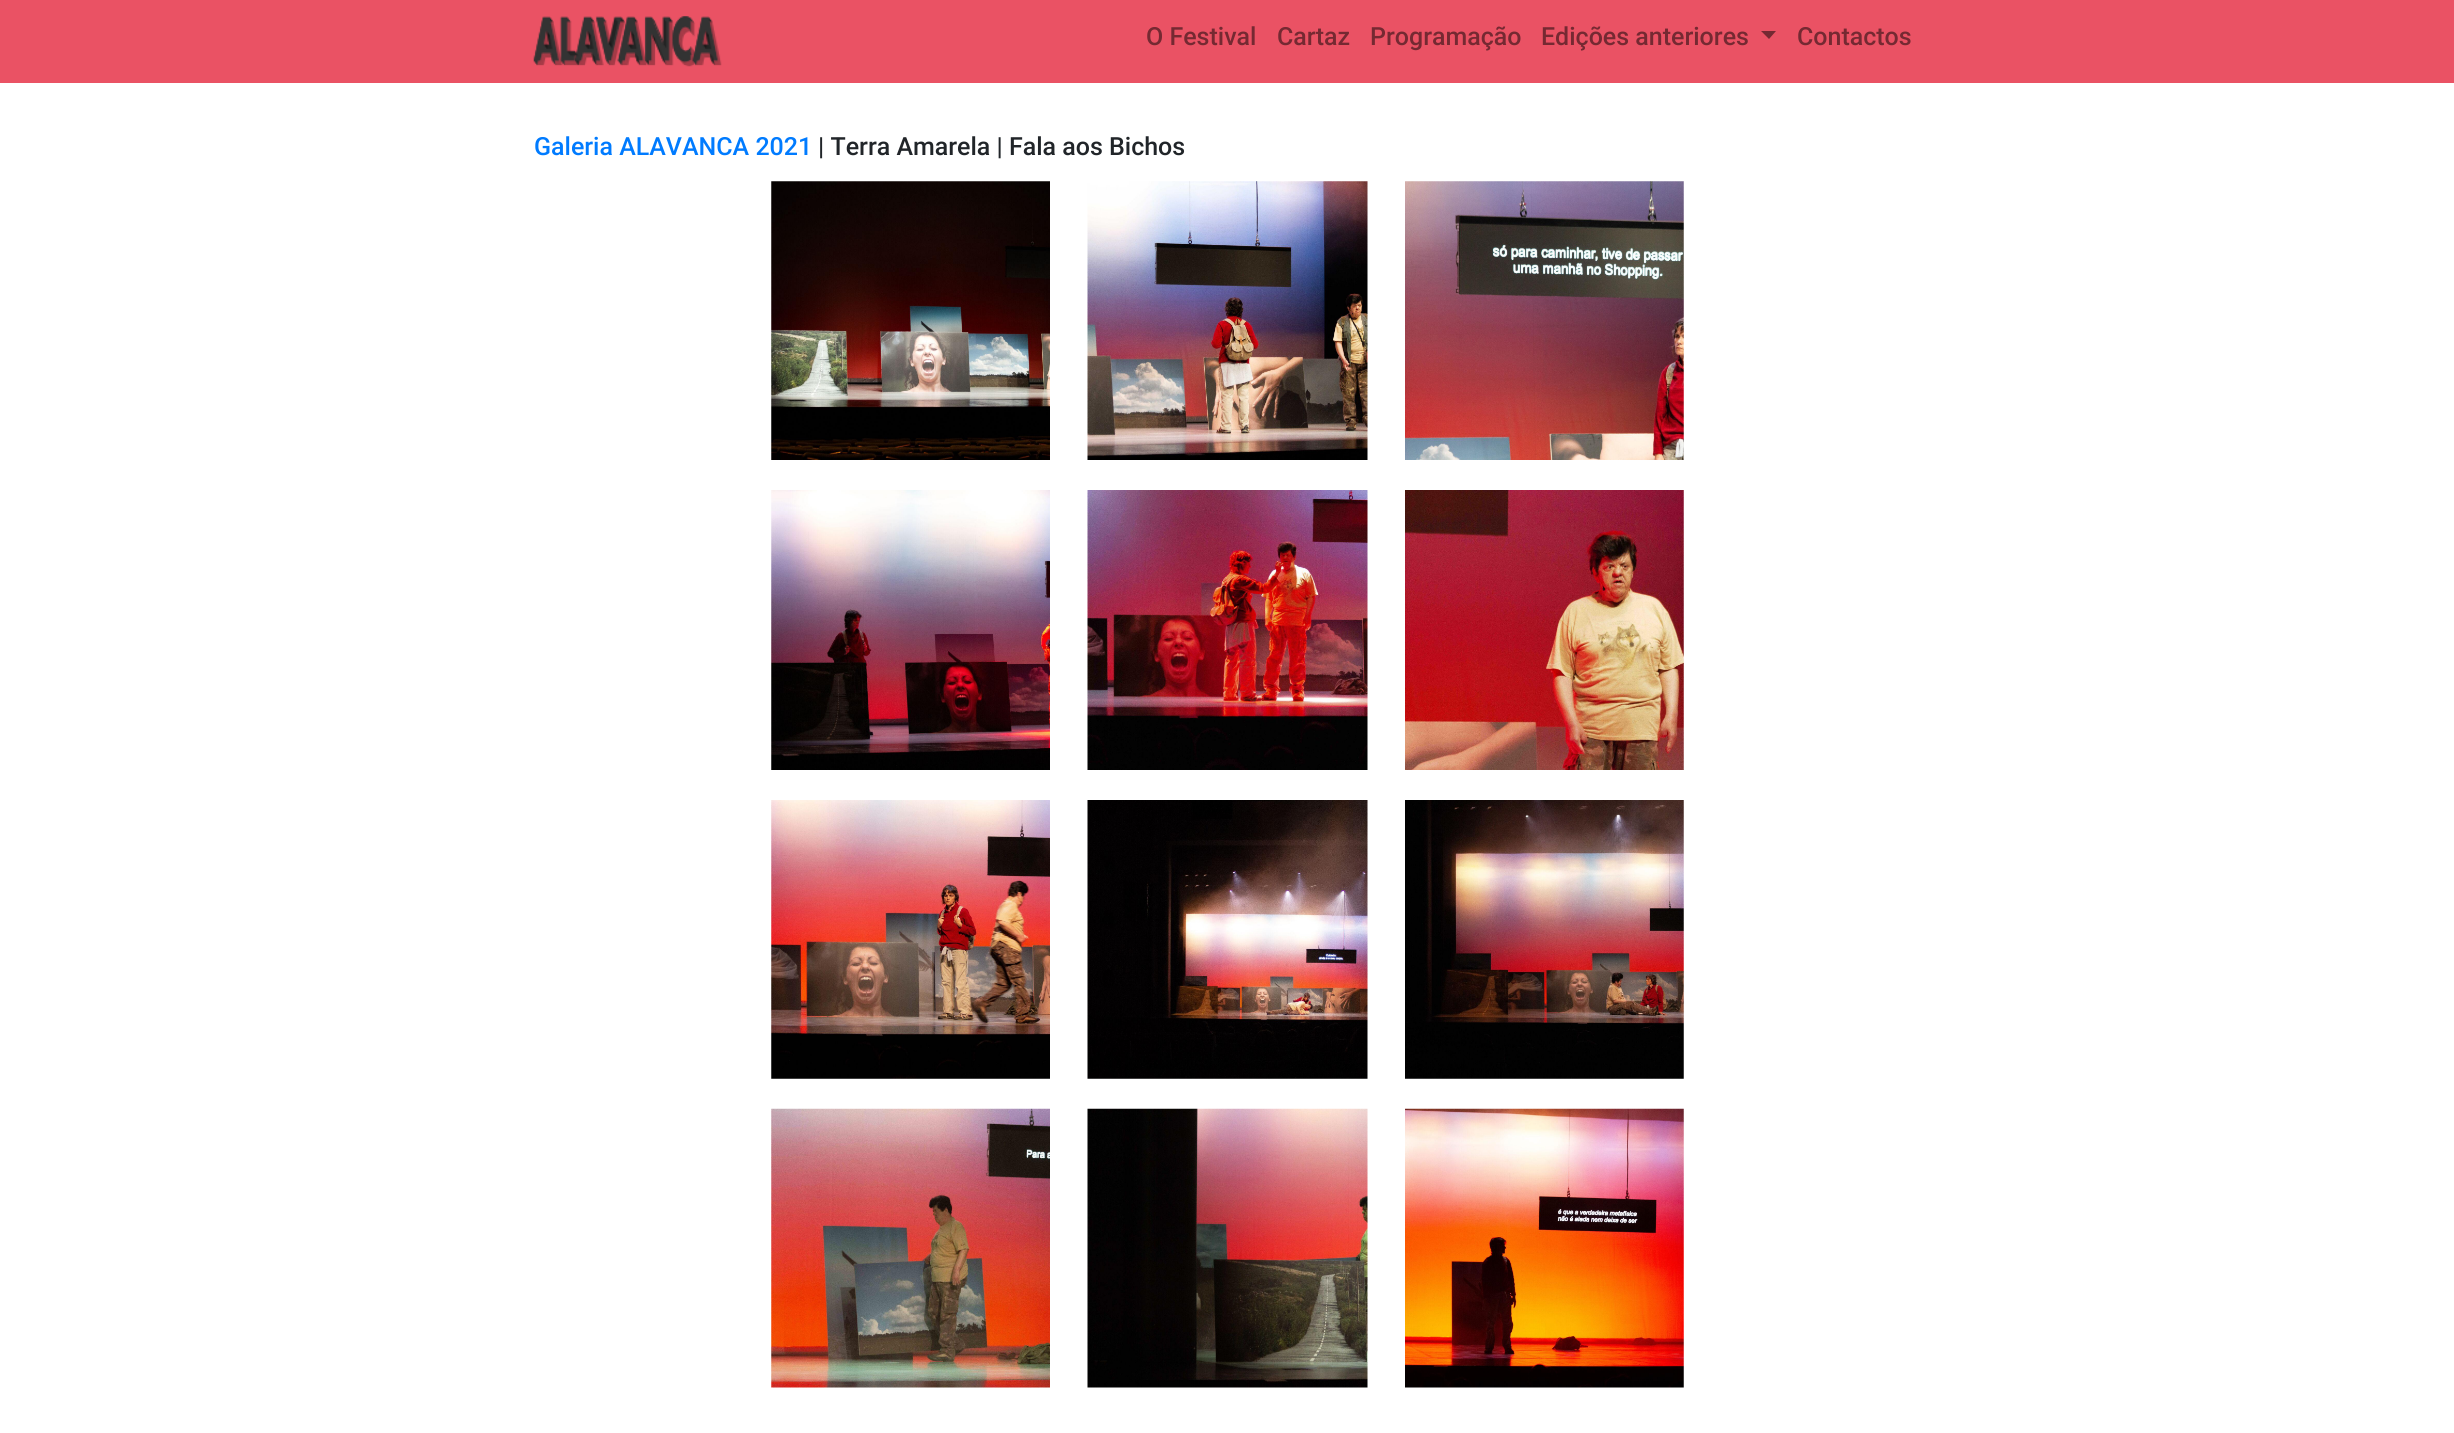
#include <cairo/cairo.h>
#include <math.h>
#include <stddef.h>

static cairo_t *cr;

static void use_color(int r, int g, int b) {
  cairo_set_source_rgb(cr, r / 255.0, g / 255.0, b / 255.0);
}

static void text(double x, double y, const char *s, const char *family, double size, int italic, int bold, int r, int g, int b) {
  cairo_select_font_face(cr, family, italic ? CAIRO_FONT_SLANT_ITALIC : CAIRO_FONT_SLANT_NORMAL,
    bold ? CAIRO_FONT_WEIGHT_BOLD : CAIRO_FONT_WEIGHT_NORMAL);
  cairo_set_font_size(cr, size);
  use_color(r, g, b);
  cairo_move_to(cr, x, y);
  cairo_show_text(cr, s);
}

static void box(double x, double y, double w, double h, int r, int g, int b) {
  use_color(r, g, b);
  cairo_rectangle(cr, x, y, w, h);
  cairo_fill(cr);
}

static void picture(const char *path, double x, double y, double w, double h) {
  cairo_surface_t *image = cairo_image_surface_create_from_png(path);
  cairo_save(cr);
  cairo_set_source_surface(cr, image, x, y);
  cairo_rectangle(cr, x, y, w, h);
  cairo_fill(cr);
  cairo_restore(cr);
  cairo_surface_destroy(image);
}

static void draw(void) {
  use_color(255, 255, 255);
  cairo_paint(cr);
  box(0, 0, 2454, 83, 234, 82, 100);
  picture("img_01.png", 533, 16, 189, 51);
  use_color(117, 41, 50);
  cairo_new_path(cr);
  cairo_move_to(cr, 1761, 31);
  cairo_line_to(cr, 1776, 31);
  cairo_line_to(cr, 1769, 39);
  cairo_close_path(cr);
  cairo_fill(cr);
  picture("img_02.png", 771, 181, 279, 279);
  picture("img_03.png", 1087, 181, 281, 279);
  picture("img_04.png", 1405, 181, 279, 279);
  picture("img_05.png", 771, 490, 279, 280);
  picture("img_06.png", 1087, 490, 281, 280);
  picture("img_07.png", 1405, 490, 279, 280);
  picture("img_08.png", 771, 800, 279, 279);
  picture("img_09.png", 1087, 800, 281, 279);
  picture("img_10.png", 1405, 800, 279, 279);
  picture("img_11.png", 771, 1108, 279, 280);
  picture("img_12.png", 1087, 1108, 281, 280);
  picture("img_13.png", 1405, 1108, 279, 280);
  text(1146, 45, "O Festival", "Roboto Medium", 25, 0, 0, 117, 41, 50);
  text(1277, 45, "Cartaz", "Roboto Medium", 25, 0, 0, 117, 41, 50);
  text(1370, 45, "Programação", "Roboto Medium", 25, 0, 0, 117, 41, 50);
  text(1541, 45, "Edições anteriores", "Roboto Medium", 25, 0, 0, 117, 41, 50);
  text(1797, 45, "Contactos", "Roboto Medium", 25, 0, 0, 117, 41, 50);
  text(534, 155, "Galeria ALAVANCA 2021", "Roboto Medium", 25, 0, 0, 0, 123, 255);
  text(818, 155, "| Terra Amarela | Fala aos Bichos", "Roboto Medium", 25, 0, 0, 33, 37, 41);
}

int main(void) {
  cairo_surface_t *surface = cairo_image_surface_create(CAIRO_FORMAT_RGB24, 2454, 1433);
  cr = cairo_create(surface);
  cairo_font_options_t *options = cairo_font_options_create();
  cairo_font_options_set_hint_metrics(options, CAIRO_HINT_METRICS_OFF);
  cairo_font_options_set_hint_style(options, CAIRO_HINT_STYLE_NONE);
  cairo_set_font_options(cr, options);
  cairo_set_miter_limit(cr, 4);
  draw();
  cairo_surface_write_to_png(surface, "out.png");
  cairo_font_options_destroy(options);
  cairo_destroy(cr);
  cairo_surface_destroy(surface);
  return 0;
}
